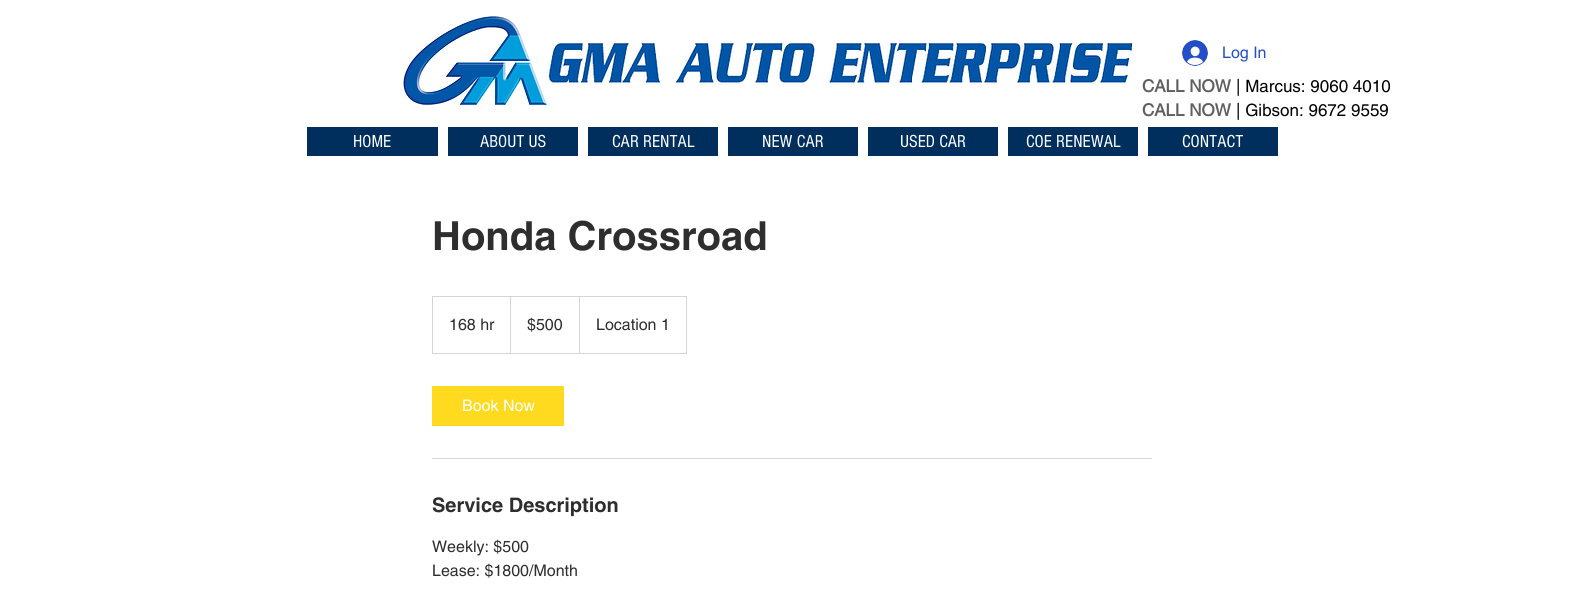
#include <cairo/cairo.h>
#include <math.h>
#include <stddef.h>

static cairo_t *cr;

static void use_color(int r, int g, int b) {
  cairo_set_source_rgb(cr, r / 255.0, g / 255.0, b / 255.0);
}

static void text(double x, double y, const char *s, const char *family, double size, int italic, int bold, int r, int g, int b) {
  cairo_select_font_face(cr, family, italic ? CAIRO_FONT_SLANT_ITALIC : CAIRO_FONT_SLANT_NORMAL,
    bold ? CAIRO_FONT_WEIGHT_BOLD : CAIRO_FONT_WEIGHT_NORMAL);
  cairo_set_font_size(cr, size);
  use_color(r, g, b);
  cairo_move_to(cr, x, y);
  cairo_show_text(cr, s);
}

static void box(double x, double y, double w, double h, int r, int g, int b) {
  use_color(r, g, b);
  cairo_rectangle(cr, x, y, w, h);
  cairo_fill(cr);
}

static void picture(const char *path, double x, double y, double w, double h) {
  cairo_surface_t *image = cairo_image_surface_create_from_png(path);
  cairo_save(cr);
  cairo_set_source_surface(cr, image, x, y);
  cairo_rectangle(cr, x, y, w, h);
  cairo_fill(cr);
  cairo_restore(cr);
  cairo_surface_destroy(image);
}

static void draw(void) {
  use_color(255, 255, 255);
  cairo_paint(cr);
  picture("img_01.png", 403, 16, 144, 89);
  picture("img_02.png", 542, 41, 591, 52);
  picture("img_03.png", 1182, 40, 26, 26);
  box(307, 127, 131, 29, 0, 46, 93);
  box(448, 127, 130, 29, 0, 46, 93);
  box(588, 127, 130, 29, 0, 46, 93);
  box(728, 127, 130, 29, 0, 46, 93);
  box(868, 127, 130, 29, 0, 46, 93);
  box(1008, 127, 130, 29, 0, 46, 93);
  box(1148, 127, 130, 29, 0, 46, 93);
  cairo_rectangle(cr, 432.5, 296.5, 254, 57);
  use_color(213, 213, 213);
  cairo_set_line_width(cr, 1);
  cairo_stroke(cr);
  cairo_new_path(cr);
  cairo_move_to(cr, 510, 353);
  cairo_line_to(cr, 510, 296);
  cairo_line_to(cr, 511, 297);
  cairo_line_to(cr, 511, 353);
  cairo_close_path(cr);
  cairo_fill(cr);
  cairo_new_path(cr);
  cairo_move_to(cr, 579, 353);
  cairo_line_to(cr, 579, 296);
  cairo_line_to(cr, 580, 297);
  cairo_line_to(cr, 580, 353);
  cairo_close_path(cr);
  cairo_fill(cr);
  box(432, 386, 132, 40, 255, 218, 31);
  box(432, 458, 720, 1, 213, 213, 213);
  text(1222, 58, "Log In", "helvetica", 16, 0, 0, 34, 78, 202);
  text(1142, 92, "CALL NOW", "helvetica", 17, 0, 1, 96, 94, 94);
  text(1236, 92, "| Marcus: 9060 4010", "helvetica", 17, 0, 0, 0, 0, 0);
  text(1142, 116, "CALL NOW", "helvetica", 17, 0, 1, 96, 94, 94);
  text(1236, 116, "| Gibson: 9672 9559", "helvetica", 17, 0, 0, 0, 0, 0);
  text(353, 147, "HOME", "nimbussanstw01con", 18, 0, 0, 255, 255, 255);
  text(480, 147, "ABOUT US", "nimbussanstw01con", 18, 0, 0, 255, 255, 255);
  text(612, 147, "CAR RENTAL", "nimbussanstw01con", 18, 0, 0, 255, 255, 255);
  text(762, 147, "NEW CAR", "nimbussanstw01con", 18, 0, 0, 255, 255, 255);
  text(900, 147, "USED CAR", "nimbussanstw01con", 18, 0, 0, 255, 255, 255);
  text(1026, 147, "COE RENEWAL", "nimbussanstw01con", 18, 0, 0, 255, 255, 255);
  text(1182, 147, "CONTACT", "nimbussanstw01con", 18, 0, 0, 255, 255, 255);
  text(432, 250, "Honda Crossroad", "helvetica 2", 40, 0, 1, 47, 46, 46);
  text(449, 330, "168 hr", "helvetica", 16, 0, 0, 47, 46, 46);
  text(527, 330, "$500", "helvetica", 16, 0, 0, 47, 46, 46);
  text(596, 330, "Location 1", "helvetica", 16, 0, 0, 47, 46, 46);
  text(462, 411, "Book Now", "helvetica", 16, 0, 0, 255, 255, 255);
  text(432, 512, "Service Description", "helvetica 2", 20, 0, 1, 47, 46, 46);
  text(432, 552, "Weekly: $500", "helvetica", 16, 0, 0, 47, 46, 46);
  text(432, 576, "Lease: $1800/Month", "helvetica", 16, 0, 0, 47, 46, 46);
}

int main(void) {
  cairo_surface_t *surface = cairo_image_surface_create(CAIRO_FORMAT_RGB24, 1584, 603);
  cr = cairo_create(surface);
  cairo_font_options_t *options = cairo_font_options_create();
  cairo_font_options_set_hint_metrics(options, CAIRO_HINT_METRICS_OFF);
  cairo_font_options_set_hint_style(options, CAIRO_HINT_STYLE_NONE);
  cairo_set_font_options(cr, options);
  cairo_set_miter_limit(cr, 4);
  draw();
  cairo_surface_write_to_png(surface, "out.png");
  cairo_font_options_destroy(options);
  cairo_destroy(cr);
  cairo_surface_destroy(surface);
  return 0;
}
